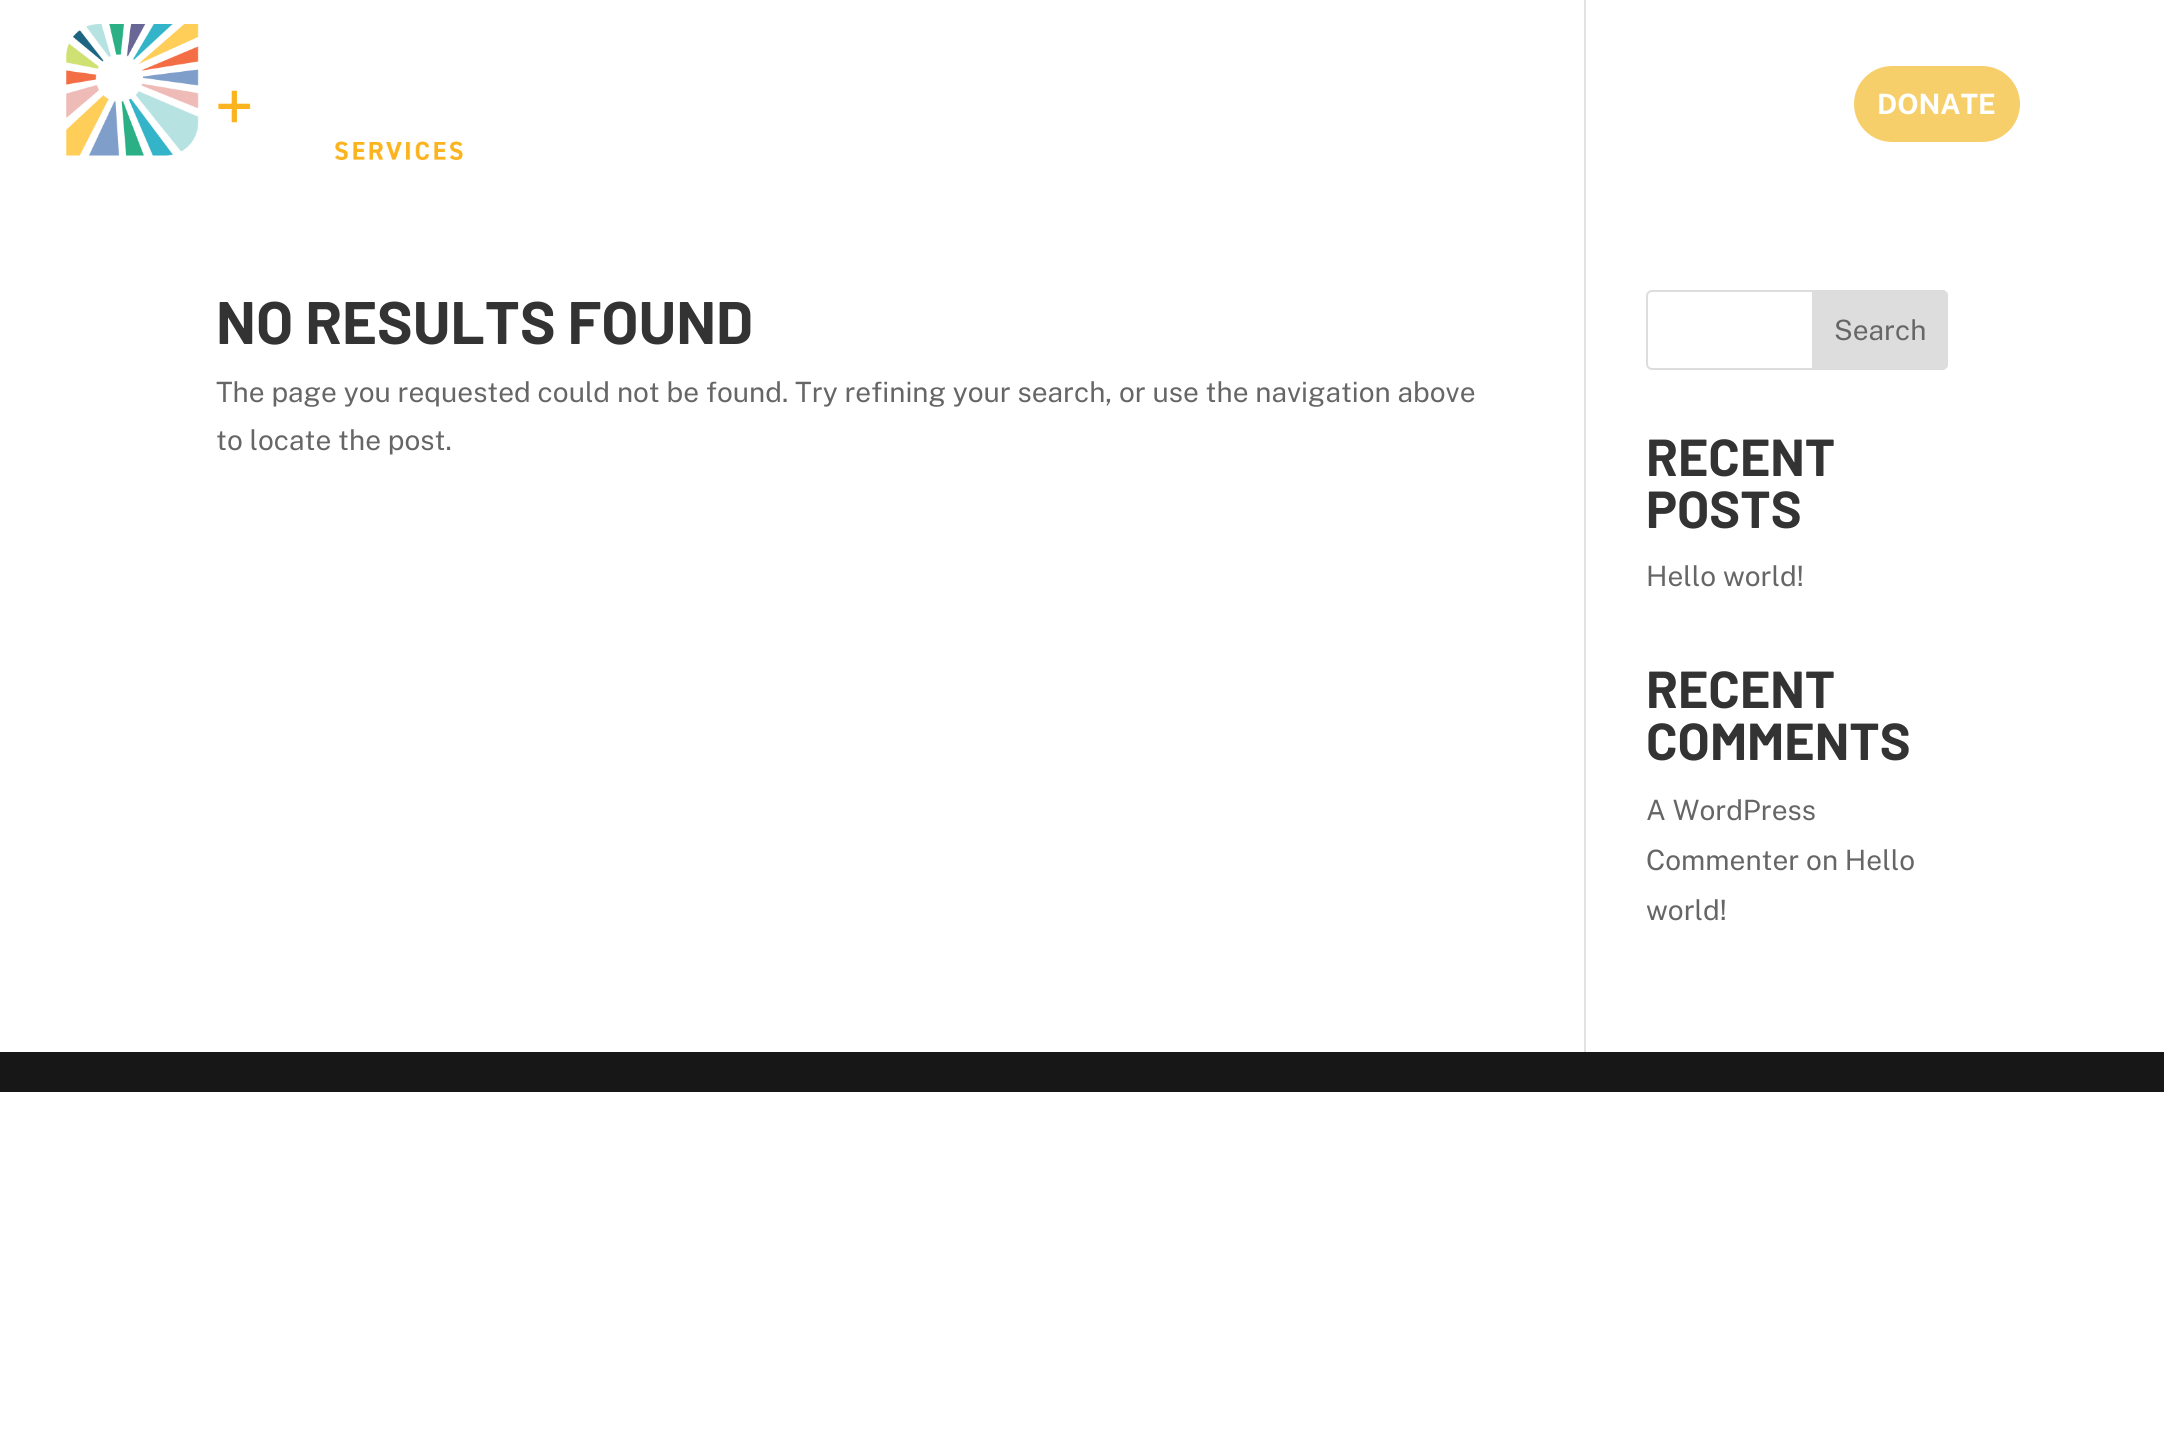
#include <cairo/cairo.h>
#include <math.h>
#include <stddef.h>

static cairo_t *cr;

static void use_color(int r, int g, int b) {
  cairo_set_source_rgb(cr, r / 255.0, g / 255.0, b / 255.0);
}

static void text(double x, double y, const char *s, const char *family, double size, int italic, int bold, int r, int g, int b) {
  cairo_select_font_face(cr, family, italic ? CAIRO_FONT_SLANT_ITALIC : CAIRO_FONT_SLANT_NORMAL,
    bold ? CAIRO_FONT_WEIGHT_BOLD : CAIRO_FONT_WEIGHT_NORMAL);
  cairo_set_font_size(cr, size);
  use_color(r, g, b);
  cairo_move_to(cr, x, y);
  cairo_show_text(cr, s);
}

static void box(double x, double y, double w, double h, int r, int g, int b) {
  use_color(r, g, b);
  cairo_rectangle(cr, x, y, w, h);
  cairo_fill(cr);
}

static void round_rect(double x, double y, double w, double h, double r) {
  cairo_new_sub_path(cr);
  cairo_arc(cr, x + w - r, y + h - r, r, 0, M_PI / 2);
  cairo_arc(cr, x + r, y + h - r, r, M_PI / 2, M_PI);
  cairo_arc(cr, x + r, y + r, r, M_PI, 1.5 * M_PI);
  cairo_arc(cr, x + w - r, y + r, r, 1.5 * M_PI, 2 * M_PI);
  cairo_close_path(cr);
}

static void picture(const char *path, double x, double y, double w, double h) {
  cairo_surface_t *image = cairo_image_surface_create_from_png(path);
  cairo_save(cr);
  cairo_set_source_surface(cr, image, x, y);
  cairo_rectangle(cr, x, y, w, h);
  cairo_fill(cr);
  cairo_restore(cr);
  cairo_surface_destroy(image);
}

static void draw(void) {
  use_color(255, 255, 255);
  cairo_paint(cr);
  picture("img_01.png", 66, 24, 397, 136);
  use_color(246, 207, 107);
  round_rect(1854, 66, 166, 76, 38);
  cairo_fill(cr);
  box(1584, 0, 2, 1052, 226, 226, 226);
  round_rect(1647, 291, 300, 78, 5);
  use_color(221, 221, 221);
  cairo_stroke(cr);
  cairo_new_path(cr);
  cairo_move_to(cr, 1813, 291);
  cairo_line_to(cr, 1942, 291);
  cairo_curve_to(cr, 1945, 291, 1947, 293, 1947, 296);
  cairo_line_to(cr, 1947, 364);
  cairo_curve_to(cr, 1947, 367, 1945, 369, 1942, 369);
  cairo_line_to(cr, 1813, 369);
  cairo_close_path(cr);
  cairo_fill_preserve(cr);
  cairo_stroke(cr);
  box(0, 1052, 2164, 40, 23, 23, 23);
  text(1877, 114, "DONATE", "Public Sans", 28, 0, 1, 255, 255, 255);
  text(216, 344, "NO RESULTS FOUND", "Barlow", 60, 0, 1, 51, 51, 51);
  text(216, 402, "The page you requested could not be found. Try refining your search, or use the navigation above", "Public Sans", 28, 0, 0, 102, 102, 102);
  text(216, 450, "to locate the post.", "Public Sans", 28, 0, 0, 102, 102, 102);
  text(1834, 340, "Search", "Public Sans", 28, 0, 0, 102, 102, 102);
  text(1646, 476, "RECENT", "Barlow", 52, 0, 1, 51, 51, 51);
  text(1646, 528, "POSTS", "Barlow", 52, 0, 1, 51, 51, 51);
  text(1646, 586, "Hello world!", "Public Sans", 28, 0, 0, 102, 102, 102);
  text(1646, 708, "RECENT", "Barlow", 52, 0, 1, 51, 51, 51);
  text(1646, 760, "COMMENTS", "Barlow", 52, 0, 1, 51, 51, 51);
  text(1646, 820, "A WordPress", "Public Sans", 28, 0, 0, 102, 102, 102);
  text(1646, 870, "Commenter on Hello", "Public Sans", 28, 0, 0, 102, 102, 102);
  text(1646, 920, "world!", "Public Sans", 28, 0, 0, 102, 102, 102);
}

int main(void) {
  cairo_surface_t *surface = cairo_image_surface_create(CAIRO_FORMAT_RGB24, 2164, 1447);
  cr = cairo_create(surface);
  cairo_font_options_t *options = cairo_font_options_create();
  cairo_font_options_set_hint_metrics(options, CAIRO_HINT_METRICS_OFF);
  cairo_font_options_set_hint_style(options, CAIRO_HINT_STYLE_NONE);
  cairo_set_font_options(cr, options);
  cairo_set_miter_limit(cr, 4);
  draw();
  cairo_surface_write_to_png(surface, "out.png");
  cairo_font_options_destroy(options);
  cairo_destroy(cr);
  cairo_surface_destroy(surface);
  return 0;
}
